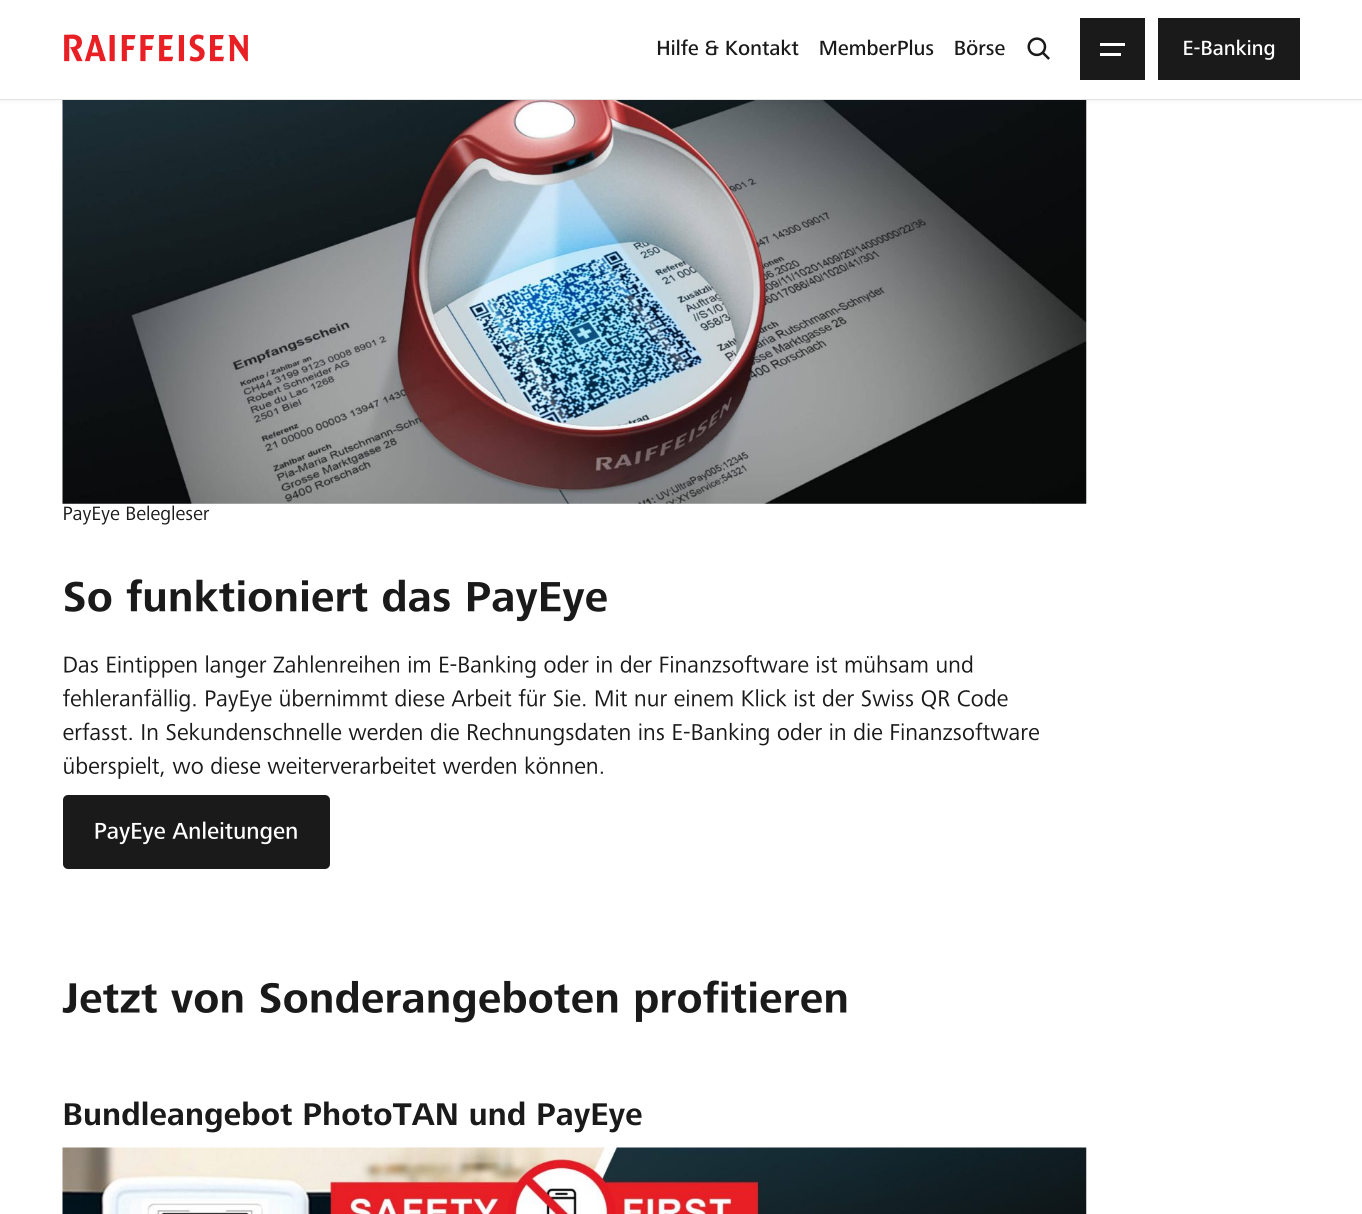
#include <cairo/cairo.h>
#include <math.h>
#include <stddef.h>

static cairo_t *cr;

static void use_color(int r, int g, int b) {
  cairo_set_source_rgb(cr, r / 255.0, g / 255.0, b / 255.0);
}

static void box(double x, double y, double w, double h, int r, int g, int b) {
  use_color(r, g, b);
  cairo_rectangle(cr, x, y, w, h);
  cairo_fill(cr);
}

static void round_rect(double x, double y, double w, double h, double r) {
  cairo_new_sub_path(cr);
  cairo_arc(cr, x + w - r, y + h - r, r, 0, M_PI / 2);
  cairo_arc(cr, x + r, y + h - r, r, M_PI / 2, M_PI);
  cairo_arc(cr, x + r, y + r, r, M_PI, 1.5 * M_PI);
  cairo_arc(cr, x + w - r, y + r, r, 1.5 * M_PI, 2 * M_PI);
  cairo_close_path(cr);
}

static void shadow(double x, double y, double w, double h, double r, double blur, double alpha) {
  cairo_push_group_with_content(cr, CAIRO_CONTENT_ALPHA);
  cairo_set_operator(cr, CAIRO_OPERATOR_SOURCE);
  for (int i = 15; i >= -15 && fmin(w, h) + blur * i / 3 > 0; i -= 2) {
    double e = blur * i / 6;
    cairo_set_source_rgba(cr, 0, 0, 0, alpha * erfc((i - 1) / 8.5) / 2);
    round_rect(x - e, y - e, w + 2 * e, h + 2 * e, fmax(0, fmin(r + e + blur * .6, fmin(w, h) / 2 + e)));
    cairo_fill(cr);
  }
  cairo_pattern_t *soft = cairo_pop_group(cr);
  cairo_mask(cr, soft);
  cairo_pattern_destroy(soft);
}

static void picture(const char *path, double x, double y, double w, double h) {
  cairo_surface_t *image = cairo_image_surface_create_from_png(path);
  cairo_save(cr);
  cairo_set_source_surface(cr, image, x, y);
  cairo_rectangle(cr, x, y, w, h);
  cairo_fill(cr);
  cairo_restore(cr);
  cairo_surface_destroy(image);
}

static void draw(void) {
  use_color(255, 255, 255);
  cairo_paint(cr);
  picture("img_07.png", 62, 100, 1025, 404);
  use_color(0, 0, 0);
  shadow(0, 1, 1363, 100, 0, 2, 0.05);
  box(0, 0, 1362, 99, 255, 255, 255);
  box(0, 99, 1362, 1, 228, 228, 228);
  picture("img_01.png", 64, 34, 184, 28);
  picture("img_02.png", 657, 39, 142, 17);
  picture("img_03.png", 820, 39, 114, 17);
  picture("img_04.png", 955, 40, 50, 16);
  picture("img_05.png", 1027, 37, 23, 23);
  box(1080, 18, 65, 62, 26, 26, 26);
  box(1100, 43, 25, 3, 255, 255, 255);
  box(1100, 53, 21, 3, 255, 255, 255);
  box(1158, 18, 142, 62, 26, 26, 26);
  picture("img_06.png", 1184, 39, 91, 21);
  picture("img_08.png", 64, 505, 146, 20);
  picture("img_09.png", 65, 579, 542, 43);
  picture("img_10.png", 64, 655, 909, 23);
  picture("img_11.png", 63, 688, 945, 24);
  picture("img_12.png", 63, 722, 976, 24);
  picture("img_13.png", 64, 756, 539, 23);
  round_rect(63, 795, 267, 74, 5);
  cairo_fill(cr);
  picture("img_14.png", 95, 821, 202, 24);
  picture("img_15.png", 62, 980, 785, 43);
  picture("img_16.png", 64, 1101, 578, 32);
  picture("img_17.png", 62, 1147, 1025, 67);
}

int main(void) {
  cairo_surface_t *surface = cairo_image_surface_create(CAIRO_FORMAT_RGB24, 1362, 1214);
  cr = cairo_create(surface);
  cairo_font_options_t *options = cairo_font_options_create();
  cairo_font_options_set_hint_metrics(options, CAIRO_HINT_METRICS_OFF);
  cairo_font_options_set_hint_style(options, CAIRO_HINT_STYLE_NONE);
  cairo_set_font_options(cr, options);
  cairo_set_miter_limit(cr, 4);
  draw();
  cairo_surface_write_to_png(surface, "out.png");
  cairo_font_options_destroy(options);
  cairo_destroy(cr);
  cairo_surface_destroy(surface);
  return 0;
}
